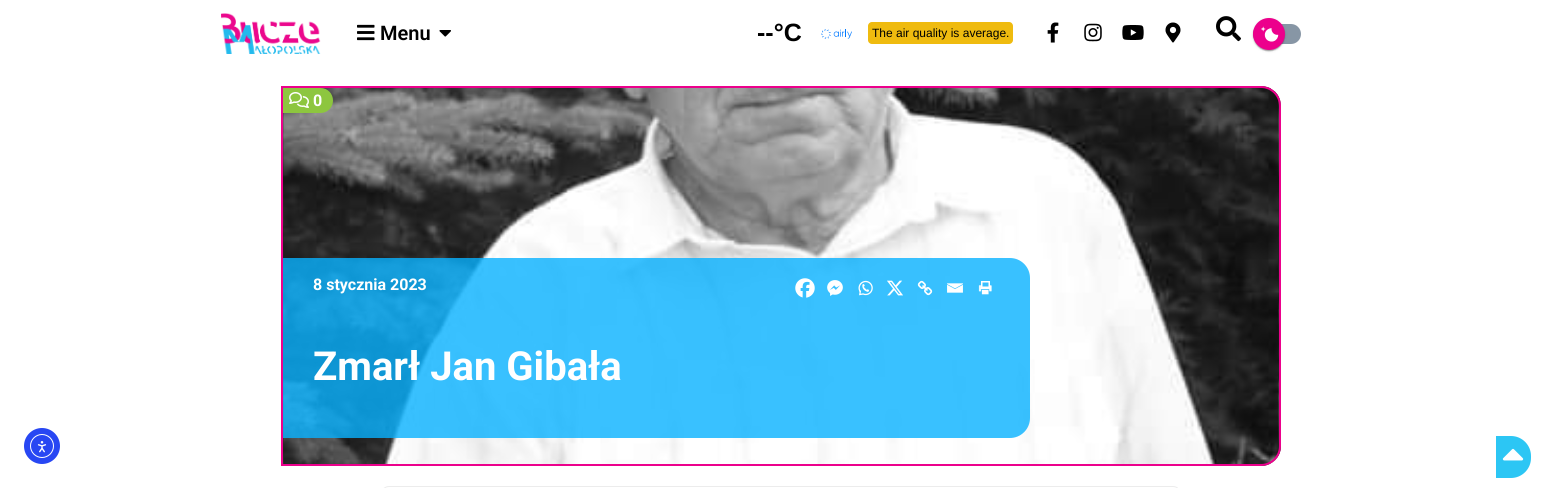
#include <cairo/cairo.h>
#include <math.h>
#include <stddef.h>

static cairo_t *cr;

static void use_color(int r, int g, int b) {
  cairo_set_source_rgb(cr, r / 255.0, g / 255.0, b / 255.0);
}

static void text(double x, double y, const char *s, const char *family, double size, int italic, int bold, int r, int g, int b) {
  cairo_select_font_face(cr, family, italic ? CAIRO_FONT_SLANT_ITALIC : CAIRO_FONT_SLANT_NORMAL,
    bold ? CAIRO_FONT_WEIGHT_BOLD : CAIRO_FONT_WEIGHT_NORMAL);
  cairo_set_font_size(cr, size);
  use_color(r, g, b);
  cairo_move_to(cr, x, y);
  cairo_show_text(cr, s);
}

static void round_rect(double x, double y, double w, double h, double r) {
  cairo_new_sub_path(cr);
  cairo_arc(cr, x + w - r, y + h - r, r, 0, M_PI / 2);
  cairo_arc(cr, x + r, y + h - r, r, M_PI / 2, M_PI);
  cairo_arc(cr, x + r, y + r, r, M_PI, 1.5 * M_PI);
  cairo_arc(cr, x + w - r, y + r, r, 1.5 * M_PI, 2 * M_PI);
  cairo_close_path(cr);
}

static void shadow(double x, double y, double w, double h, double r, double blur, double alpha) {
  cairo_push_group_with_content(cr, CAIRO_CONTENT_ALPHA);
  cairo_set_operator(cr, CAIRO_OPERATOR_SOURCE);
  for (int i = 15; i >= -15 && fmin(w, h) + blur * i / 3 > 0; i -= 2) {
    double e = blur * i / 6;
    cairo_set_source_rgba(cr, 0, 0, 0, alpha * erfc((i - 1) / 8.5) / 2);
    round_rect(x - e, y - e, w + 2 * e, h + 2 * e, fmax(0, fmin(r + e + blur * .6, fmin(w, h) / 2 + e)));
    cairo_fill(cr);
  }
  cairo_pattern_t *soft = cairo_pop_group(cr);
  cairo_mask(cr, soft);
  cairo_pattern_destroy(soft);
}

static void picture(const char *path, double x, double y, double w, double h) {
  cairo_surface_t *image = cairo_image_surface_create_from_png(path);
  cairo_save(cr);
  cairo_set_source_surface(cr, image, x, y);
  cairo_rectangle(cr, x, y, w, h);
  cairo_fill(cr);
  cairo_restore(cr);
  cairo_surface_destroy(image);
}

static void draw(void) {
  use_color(255, 255, 255);
  cairo_paint(cr);
  picture("img_01.png", 221, 13, 100, 41);
  picture("img_02.png", 357, 24, 18, 17);
  picture("img_03.png", 439, 30, 12, 7);
  picture("img_04.png", 821, 29, 31, 10);
  use_color(239, 187, 15);
  round_rect(868, 22, 145, 22, 4);
  cairo_fill(cr);
  picture("img_05.png", 1047, 22, 12, 21);
  picture("img_06.png", 1084, 23, 18, 19);
  picture("img_07.png", 1122, 25, 22, 15);
  picture("img_08.png", 1165, 22, 16, 21);
  picture("img_09.png", 1216, 16, 25, 26);
  use_color(135, 150, 165);
  round_rect(1253, 24, 48, 20, 10);
  cairo_fill(cr);
  use_color(0, 0, 0);
  shadow(1253, 19, 32, 32, 16, 1.5, 0.12);
  shadow(1253, 19, 32, 32, 16, 0.5, 0.14);
  shadow(1254, 21, 30, 30, 15, 0.5, 0.2);
  use_color(236, 0, 140);
  cairo_arc(cr, 1269, 34, 16, 0, 2 * M_PI);
  cairo_fill(cr);
  picture("img_10.png", 1261, 26, 18, 16);
  picture("img_11.png", 283, 86, 998, 380);
  cairo_new_path(cr);
  cairo_move_to(cr, 282, 87);
  cairo_line_to(cr, 1261, 87);
  cairo_curve_to(cr, 1271.5, 87, 1280, 95.5, 1280, 106);
  cairo_line_to(cr, 1280, 446);
  cairo_curve_to(cr, 1280, 456.5, 1271.5, 465, 1261, 465);
  cairo_line_to(cr, 282, 465);
  cairo_close_path(cr);
  cairo_stroke(cr);
  use_color(141, 198, 63);
  cairo_new_path(cr);
  cairo_move_to(cr, 283, 88);
  cairo_line_to(cr, 320.5, 88);
  cairo_curve_to(cr, 327.5, 88, 333, 93.5, 333, 100.5);
  cairo_curve_to(cr, 333, 107.5, 327.5, 113, 320.5, 113);
  cairo_line_to(cr, 283, 113);
  cairo_close_path(cr);
  cairo_fill(cr);
  picture("img_12.png", 289, 92, 20, 16);
  cairo_set_source_rgba(cr, 0.031, 0.694, 1, 0.8);
  cairo_new_path(cr);
  cairo_move_to(cr, 283, 258);
  cairo_line_to(cr, 1010, 258);
  cairo_curve_to(cr, 1021, 258, 1030, 267, 1030, 278);
  cairo_line_to(cr, 1030, 418);
  cairo_curve_to(cr, 1030, 429, 1021, 438, 1010, 438);
  cairo_line_to(cr, 283, 438);
  cairo_close_path(cr);
  cairo_fill(cr);
  picture("img_13.png", 795, 278, 20, 20);
  picture("img_14.png", 827, 280, 16, 16);
  picture("img_15.png", 858, 280, 15, 16);
  picture("img_16.png", 887, 280, 16, 16);
  picture("img_17.png", 917, 280, 16, 16);
  picture("img_18.png", 947, 283, 16, 10);
  picture("img_19.png", 978, 281, 14, 14);
  round_rect(381.5, 486.5, 799, 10, 7.5);
  use_color(236, 236, 236);
  cairo_set_line_width(cr, 1);
  cairo_stroke(cr);
  use_color(44, 198, 244);
  cairo_new_path(cr);
  cairo_move_to(cr, 1496, 436);
  cairo_line_to(cr, 1511, 436);
  cairo_curve_to(cr, 1522, 436, 1531, 445, 1531, 456);
  cairo_line_to(cr, 1531, 458);
  cairo_curve_to(cr, 1531, 469, 1522, 478, 1511, 478);
  cairo_line_to(cr, 1496, 478);
  cairo_close_path(cr);
  cairo_fill(cr);
  picture("img_20.png", 1502, 448, 22, 13);
  use_color(40, 71, 243);
  cairo_arc(cr, 42, 446, 18, 0, 2 * M_PI);
  cairo_fill(cr);
  cairo_arc(cr, 42, 446, 11.5, 0, 2 * M_PI);
  use_color(255, 255, 255);
  cairo_stroke(cr);
  picture("img_21.png", 37, 441, 10, 12);
  text(380, 40, "Menu", "Roboto SemiBold", 20, 0, 0, 0, 0, 0);
  text(757, 41, "--°C", "Liberation Sans", 25, 0, 1, 0, 0, 0);
  text(872, 37, "The air quality is average.", "Liberation Sans", 12, 0, 0, 0, 0, 0);
  text(313, 106, "0", "Roboto", 16, 0, 1, 255, 255, 255);
  text(313, 290, "8 stycznia 2023", "Roboto", 16, 0, 1, 255, 255, 255);
  text(313, 380, "Zmarł Jan Gibała", "Roboto", 40, 0, 1, 255, 255, 255);
}

int main(void) {
  cairo_surface_t *surface = cairo_image_surface_create(CAIRO_FORMAT_RGB24, 1562, 488);
  cr = cairo_create(surface);
  cairo_font_options_t *options = cairo_font_options_create();
  cairo_font_options_set_hint_metrics(options, CAIRO_HINT_METRICS_OFF);
  cairo_font_options_set_hint_style(options, CAIRO_HINT_STYLE_NONE);
  cairo_set_font_options(cr, options);
  cairo_set_miter_limit(cr, 4);
  draw();
  cairo_surface_write_to_png(surface, "out.png");
  cairo_font_options_destroy(options);
  cairo_destroy(cr);
  cairo_surface_destroy(surface);
  return 0;
}
